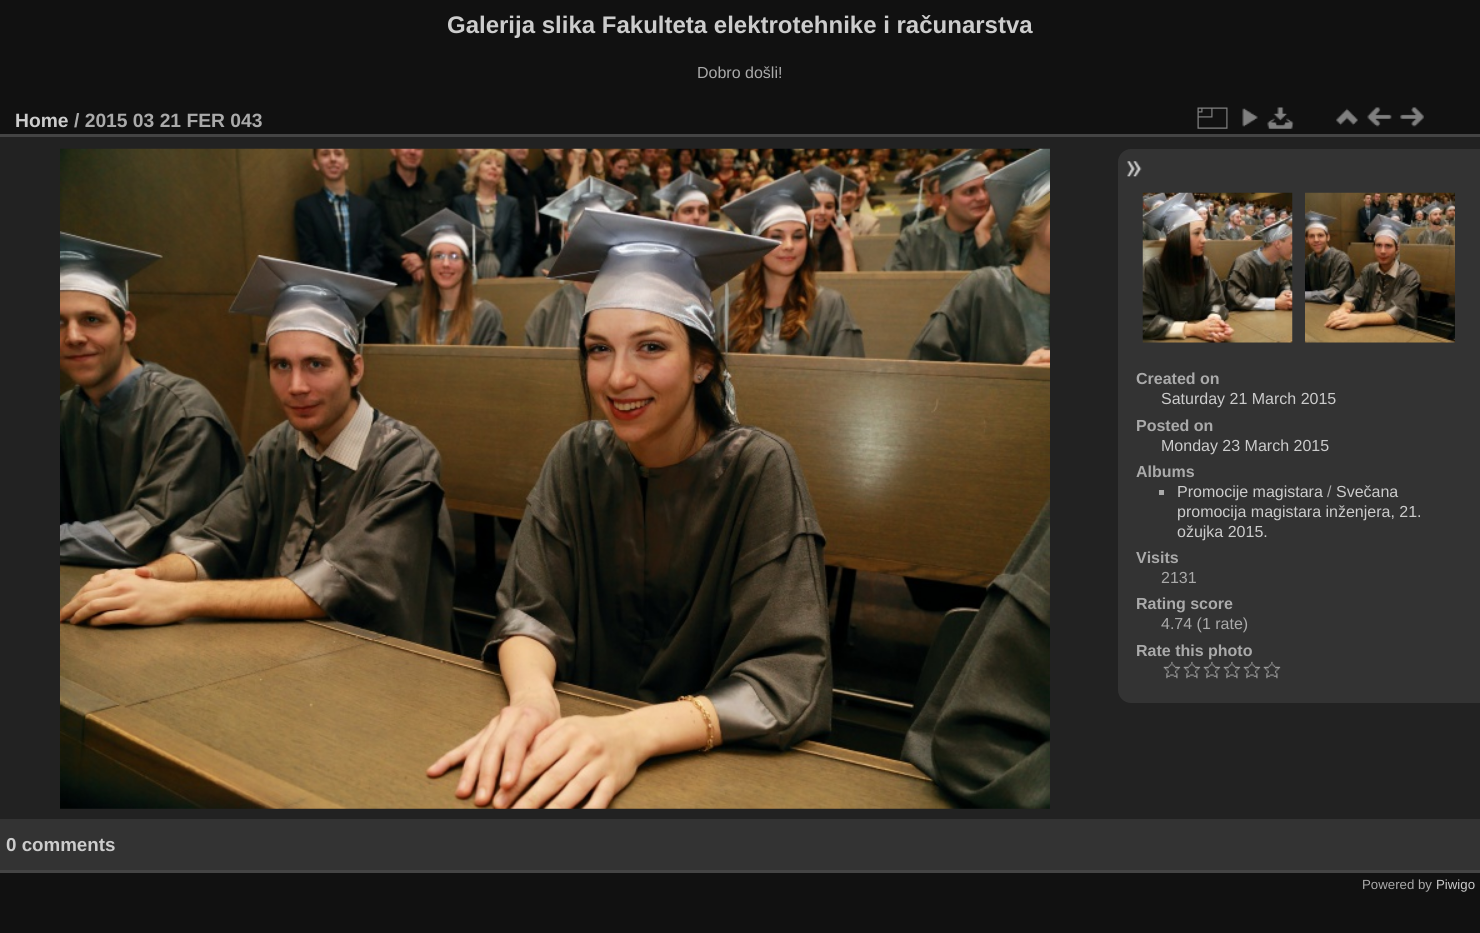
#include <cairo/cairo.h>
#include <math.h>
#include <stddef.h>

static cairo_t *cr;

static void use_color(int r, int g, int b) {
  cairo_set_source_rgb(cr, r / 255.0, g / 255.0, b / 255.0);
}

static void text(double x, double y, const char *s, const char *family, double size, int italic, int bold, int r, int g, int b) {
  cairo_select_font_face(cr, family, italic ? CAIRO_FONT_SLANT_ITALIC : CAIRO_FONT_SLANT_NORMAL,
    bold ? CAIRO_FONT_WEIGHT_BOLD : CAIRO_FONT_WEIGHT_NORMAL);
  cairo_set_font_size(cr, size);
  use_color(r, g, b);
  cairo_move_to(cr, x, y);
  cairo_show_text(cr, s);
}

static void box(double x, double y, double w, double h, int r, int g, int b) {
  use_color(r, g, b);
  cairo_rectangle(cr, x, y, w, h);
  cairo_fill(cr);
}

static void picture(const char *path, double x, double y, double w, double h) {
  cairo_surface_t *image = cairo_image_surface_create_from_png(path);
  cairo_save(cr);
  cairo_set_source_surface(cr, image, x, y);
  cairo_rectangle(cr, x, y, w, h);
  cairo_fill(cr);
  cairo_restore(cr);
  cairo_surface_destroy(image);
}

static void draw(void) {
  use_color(17, 17, 17);
  cairo_paint(cr);
  box(0, 137, 1480, 682, 34, 34, 34);
  box(0, 870, 1480, 3, 68, 68, 68);
  box(0, 134, 1480, 3, 68, 68, 68);
  picture("img_01.png", 1197, 107, 31, 22);
  picture("img_02.png", 1242, 108, 16, 19);
  picture("img_03.png", 1267, 107, 27, 22);
  picture("img_04.png", 1336, 108, 22, 18);
  picture("img_05.png", 1367, 107, 25, 20);
  picture("img_06.png", 1400, 107, 24, 20);
  picture("img_07.png", 60, 148, 990, 661);
  use_color(51, 51, 51);
  cairo_new_path(cr);
  cairo_move_to(cr, 1131, 149);
  cairo_line_to(cr, 1480, 149);
  cairo_line_to(cr, 1480, 703);
  cairo_line_to(cr, 1131, 703);
  cairo_curve_to(cr, 1124, 703, 1118, 697, 1118, 690);
  cairo_line_to(cr, 1118, 162);
  cairo_curve_to(cr, 1118, 155, 1124, 149, 1131, 149);
  cairo_close_path(cr);
  cairo_fill(cr);
  picture("img_08.png", 1127, 161, 15, 16);
  picture("img_09.png", 1142, 192, 151, 151);
  picture("img_10.png", 1305, 192, 150, 151);
  box(1159, 490, 5, 5, 170, 170, 170);
  picture("img_11.png", 1163, 661, 18, 18);
  picture("img_11.png", 1183, 661, 18, 18);
  picture("img_11.png", 1203, 661, 18, 18);
  picture("img_11.png", 1223, 661, 18, 18);
  picture("img_11.png", 1243, 661, 18, 18);
  picture("img_11.png", 1263, 661, 18, 18);
  box(0, 819, 1480, 51, 51, 51, 51);
  text(447, 33, "Galerija slika Fakulteta elektrotehnike i računarstva", "Liberation Sans", 24, 0, 1, 204, 204, 204);
  text(697, 78, "Dobro došli!", "Liberation Sans", 16, 0, 0, 170, 170, 170);
  text(15, 127, "Home", "Liberation Sans", 19.25, 0, 1, 204, 204, 204);
  text(74, 127, "/ 2015 03 21 FER 043", "Liberation Sans", 19.25, 0, 1, 170, 170, 170);
  text(1136, 384, "Created on", "Liberation Sans", 16, 0, 1, 170, 170, 170);
  text(1161, 404, "Saturday 21 March 2015", "Liberation Sans", 16, 0, 0, 204, 204, 204);
  text(1136, 431, "Posted on", "Liberation Sans", 16, 0, 1, 170, 170, 170);
  text(1161, 451, "Monday 23 March 2015", "Liberation Sans", 16, 0, 0, 204, 204, 204);
  text(1136, 477, "Albums", "Liberation Sans", 16, 0, 1, 170, 170, 170);
  text(1177, 497, "Promocije magistara", "Liberation Sans", 16, 0, 0, 204, 204, 204);
  text(1327, 497, "/", "Liberation Sans", 16, 0, 0, 170, 170, 170);
  text(1336, 497, "Svečana", "Liberation Sans", 16, 0, 0, 204, 204, 204);
  text(1177, 517, "promocija magistara inženjera, 21.", "Liberation Sans", 16, 0, 0, 204, 204, 204);
  text(1177, 537, "ožujka 2015.", "Liberation Sans", 16, 0, 0, 204, 204, 204);
  text(1136, 563, "Visits", "Liberation Sans", 16, 0, 1, 170, 170, 170);
  text(1161, 583, "2131", "Liberation Sans", 16, 0, 0, 170, 170, 170);
  text(1136, 609, "Rating score", "Liberation Sans", 16, 0, 1, 170, 170, 170);
  text(1161, 629, "4.74 (1 rate)", "Liberation Sans", 16, 0, 0, 170, 170, 170);
  text(1136, 656, "Rate this photo", "Liberation Sans", 16, 0, 1, 170, 170, 170);
  text(6, 851, "0 comments", "Liberation Sans", 18.75, 0, 1, 204, 204, 204);
  text(1362, 889, "Powered by", "Liberation Sans", 13.25, 0, 0, 170, 170, 170);
  text(1436, 889, "Piwigo", "Liberation Sans", 13.25, 0, 0, 204, 204, 204);
}

int main(void) {
  cairo_surface_t *surface = cairo_image_surface_create(CAIRO_FORMAT_RGB24, 1480, 933);
  cr = cairo_create(surface);
  cairo_font_options_t *options = cairo_font_options_create();
  cairo_font_options_set_hint_metrics(options, CAIRO_HINT_METRICS_OFF);
  cairo_font_options_set_hint_style(options, CAIRO_HINT_STYLE_NONE);
  cairo_set_font_options(cr, options);
  cairo_set_miter_limit(cr, 4);
  draw();
  cairo_surface_write_to_png(surface, "out.png");
  cairo_font_options_destroy(options);
  cairo_destroy(cr);
  cairo_surface_destroy(surface);
  return 0;
}
